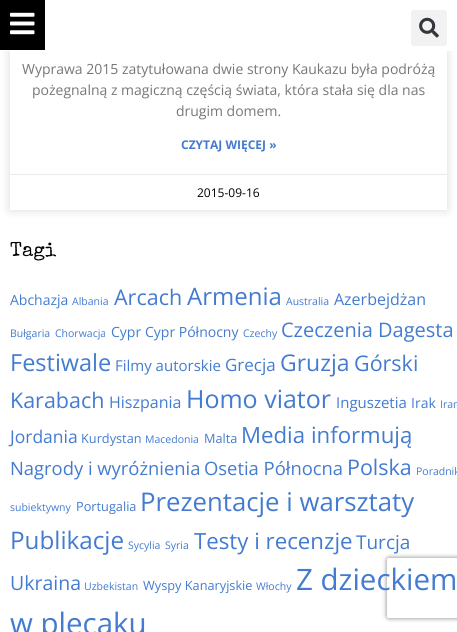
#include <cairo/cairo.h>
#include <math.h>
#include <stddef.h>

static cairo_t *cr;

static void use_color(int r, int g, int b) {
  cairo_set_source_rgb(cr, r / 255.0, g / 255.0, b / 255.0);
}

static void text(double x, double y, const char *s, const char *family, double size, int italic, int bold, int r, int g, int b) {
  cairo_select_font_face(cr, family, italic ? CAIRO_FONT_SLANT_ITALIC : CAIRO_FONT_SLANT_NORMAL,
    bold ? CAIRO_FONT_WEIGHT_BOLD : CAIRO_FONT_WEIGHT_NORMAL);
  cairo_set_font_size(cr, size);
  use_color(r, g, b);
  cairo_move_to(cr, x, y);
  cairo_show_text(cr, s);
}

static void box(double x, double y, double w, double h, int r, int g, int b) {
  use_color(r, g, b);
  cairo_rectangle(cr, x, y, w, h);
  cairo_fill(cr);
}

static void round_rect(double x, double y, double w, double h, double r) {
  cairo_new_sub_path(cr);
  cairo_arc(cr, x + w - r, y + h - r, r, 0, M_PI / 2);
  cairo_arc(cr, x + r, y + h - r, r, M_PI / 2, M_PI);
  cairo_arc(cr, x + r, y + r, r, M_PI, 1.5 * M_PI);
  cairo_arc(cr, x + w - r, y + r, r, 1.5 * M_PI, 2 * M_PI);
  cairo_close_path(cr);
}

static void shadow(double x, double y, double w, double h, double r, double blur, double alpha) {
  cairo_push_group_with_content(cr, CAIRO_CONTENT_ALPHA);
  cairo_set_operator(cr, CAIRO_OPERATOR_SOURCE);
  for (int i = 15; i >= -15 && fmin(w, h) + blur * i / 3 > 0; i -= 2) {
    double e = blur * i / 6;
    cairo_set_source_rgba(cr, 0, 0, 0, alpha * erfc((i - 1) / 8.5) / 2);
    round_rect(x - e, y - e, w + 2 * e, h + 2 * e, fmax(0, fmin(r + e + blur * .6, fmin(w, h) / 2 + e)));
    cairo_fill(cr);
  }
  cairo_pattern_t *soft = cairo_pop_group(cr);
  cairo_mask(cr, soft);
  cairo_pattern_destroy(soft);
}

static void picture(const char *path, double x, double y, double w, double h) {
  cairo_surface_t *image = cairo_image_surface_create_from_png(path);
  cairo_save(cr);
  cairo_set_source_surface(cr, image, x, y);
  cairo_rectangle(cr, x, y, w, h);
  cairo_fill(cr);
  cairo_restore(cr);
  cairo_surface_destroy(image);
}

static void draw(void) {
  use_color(255, 255, 255);
  cairo_paint(cr);
  cairo_save(cr);
  cairo_set_fill_rule(cr, CAIRO_FILL_RULE_EVEN_ODD);
  cairo_new_path(cr);
  cairo_move_to(cr, 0, 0);
  cairo_line_to(cr, 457, 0);
  cairo_line_to(cr, 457, 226);
  cairo_line_to(cr, 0, 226);
  cairo_close_path(cr);
  cairo_move_to(cr, 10, -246);
  cairo_line_to(cr, 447, -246);
  cairo_line_to(cr, 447, 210);
  cairo_line_to(cr, 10, 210);
  cairo_close_path(cr);
  cairo_clip(cr);
  use_color(0, 0, 0);
  shadow(10, -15, 437, 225, 0, 5, 0.15);
  cairo_restore(cr);
  box(3, 0, 451, 51, 255, 255, 255);
  box(0, 0, 45, 50, 0, 0, 0);
  picture("img_01.png", 10, 12, 25, 23);
  use_color(242, 242, 242);
  round_rect(411, 10, 36, 36, 3);
  cairo_fill(cr);
  picture("img_02.png", 419, 17, 20, 21);
  box(10, 174, 437, 1, 234, 234, 234);
  cairo_save(cr);
  cairo_set_fill_rule(cr, CAIRO_FILL_RULE_EVEN_ODD);
  cairo_new_path(cr);
  cairo_move_to(cr, 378, 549);
  cairo_line_to(cr, 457, 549);
  cairo_line_to(cr, 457, 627);
  cairo_line_to(cr, 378, 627);
  cairo_close_path(cr);
  cairo_move_to(cr, 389, 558);
  cairo_line_to(cr, 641, 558);
  cairo_curve_to(cr, 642, 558, 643, 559, 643, 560);
  cairo_line_to(cr, 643, 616);
  cairo_curve_to(cr, 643, 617, 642, 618, 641, 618);
  cairo_line_to(cr, 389, 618);
  cairo_curve_to(cr, 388, 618, 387, 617, 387, 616);
  cairo_line_to(cr, 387, 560);
  cairo_curve_to(cr, 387, 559, 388, 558, 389, 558);
  cairo_close_path(cr);
  cairo_clip(cr);
  use_color(128, 128, 128);
  shadow(387, 558, 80, 60, 2, 2.5, 1);
  cairo_restore(cr);
  text(22, 74, "Wyprawa 2015 zatytułowana dwie strony Kaukazu była podróżą", "Open Sans", 14, 0, 0, 119, 119, 119);
  text(32, 95, "pożegnalną z magiczną częścią świata, która stała się dla nas", "Open Sans", 14, 0, 0, 119, 119, 119);
  text(176, 116, "drugim domem.", "Open Sans", 14, 0, 0, 119, 119, 119);
  text(181, 149, "CZYTAJ WIĘCEJ »", "Open Sans", 12, 0, 1, 67, 123, 208);
  text(197, 197, "2015-09-16", "Open Sans", 12, 0, 0, 0, 0, 0);
  text(10, 256, "Tagi", "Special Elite", 20, 0, 0, 0, 0, 0);
  text(10, 305, "Abchazja", "Open Sans", 14, 0, 0, 67, 123, 208);
  text(72, 305, "Albania", "Open Sans", 10.5, 0, 0, 67, 123, 208);
  text(114, 305, "Arcach", "Open Sans", 21.5, 0, 0, 67, 123, 208);
  text(187, 305, "Armenia", "Open Sans", 24, 0, 0, 67, 123, 208);
  text(286, 305, "Australia", "Open Sans", 10.5, 0, 0, 67, 123, 208);
  text(334, 305, "Azerbejdżan", "Open Sans", 16, 0, 0, 67, 123, 208);
  text(10, 337, "Bułgaria", "Open Sans", 10.5, 0, 0, 67, 123, 208);
  text(55, 337, "Chorwacja", "Open Sans", 10.5, 0, 0, 67, 123, 208);
  text(111, 337, "Cypr", "Open Sans", 14, 0, 0, 67, 123, 208);
  text(145, 337, "Cypr Północny", "Open Sans", 14, 0, 0, 67, 123, 208);
  text(243, 337, "Czechy", "Open Sans", 10.5, 0, 0, 67, 123, 208);
  text(281, 337, "Czeczenia", "Open Sans", 20, 0, 0, 67, 123, 208);
  text(378, 337, "Dagesta", "Open Sans", 20, 0, 0, 67, 123, 208);
  text(10, 371, "Festiwale", "Open Sans", 23.5, 0, 0, 67, 123, 208);
  text(115, 371, "Filmy autorskie", "Open Sans", 15, 0, 0, 67, 123, 208);
  text(225, 371, "Grecja", "Open Sans", 17, 0, 0, 67, 123, 208);
  text(280, 371, "Gruzja", "Open Sans", 23, 0, 0, 67, 123, 208);
  text(354, 371, "Górski", "Open Sans", 21.5, 0, 0, 67, 123, 208);
  text(10, 408, "Karabach", "Open Sans", 21.5, 0, 0, 67, 123, 208);
  text(109, 408, "Hiszpania", "Open Sans", 16, 0, 0, 67, 123, 208);
  text(186, 408, "Homo viator", "Open Sans", 25, 0, 0, 67, 123, 208);
  text(336, 408, "Inguszetia", "Open Sans", 15, 0, 0, 67, 123, 208);
  text(411, 408, "Irak", "Open Sans", 14, 0, 0, 67, 123, 208);
  text(440, 408, "Iran", "Open Sans", 10.5, 0, 0, 67, 123, 208);
  text(10, 443, "Jordania", "Open Sans", 17.5, 0, 0, 67, 123, 208);
  text(81, 443, "Kurdystan", "Open Sans", 12.75, 0, 0, 67, 123, 208);
  text(145, 443, "Macedonia", "Open Sans", 10.5, 0, 0, 67, 123, 208);
  text(204, 443, "Malta", "Open Sans", 12.75, 0, 0, 67, 123, 208);
  text(241, 443, "Media informują", "Open Sans", 22.25, 0, 0, 67, 123, 208);
  text(10, 475, "Nagrody i wyróżnienia", "Open Sans", 18.4, 0, 0, 67, 123, 208);
  text(204, 475, "Osetia Północna", "Open Sans", 18.4, 0, 0, 67, 123, 208);
  text(347, 475, "Polska", "Open Sans", 21.5, 0, 0, 67, 123, 208);
  text(416, 475, "Poradnik", "Open Sans", 10.5, 0, 0, 67, 123, 208);
  text(10, 511, "subiektywny", "Open Sans", 10.5, 0, 0, 67, 123, 208);
  text(76, 511, "Portugalia", "Open Sans", 12.75, 0, 0, 67, 123, 208);
  text(140, 511, "Prezentacje i warsztaty", "Open Sans", 25.75, 0, 0, 67, 123, 208);
  text(10, 549, "Publikacje", "Open Sans", 24.25, 0, 0, 67, 123, 208);
  text(128, 549, "Sycylia", "Open Sans", 10.5, 0, 0, 67, 123, 208);
  text(165, 549, "Syria", "Open Sans", 10.5, 0, 0, 67, 123, 208);
  text(194, 549, "Testy i recenzje", "Open Sans", 22.25, 0, 0, 67, 123, 208);
  text(356, 549, "Turcja", "Open Sans", 19, 0, 0, 67, 123, 208);
  text(10, 590, "Ukraina", "Open Sans", 19.5, 0, 0, 67, 123, 208);
  text(84, 590, "Uzbekistan", "Open Sans", 10.5, 0, 0, 67, 123, 208);
  text(143, 590, "Wyspy Kanaryjskie", "Open Sans", 12.75, 0, 0, 67, 123, 208);
  text(256, 590, "Włochy", "Open Sans", 10.5, 0, 0, 67, 123, 208);
  text(296, 590, "Z dzieckiem", "Open Sans", 29.5, 0, 0, 67, 123, 208);
  text(10, 634, "w plecaku", "Open Sans", 29.5, 0, 0, 67, 123, 208);
}

int main(void) {
  cairo_surface_t *surface = cairo_image_surface_create(CAIRO_FORMAT_RGB24, 457, 632);
  cr = cairo_create(surface);
  cairo_font_options_t *options = cairo_font_options_create();
  cairo_font_options_set_hint_metrics(options, CAIRO_HINT_METRICS_OFF);
  cairo_font_options_set_hint_style(options, CAIRO_HINT_STYLE_NONE);
  cairo_set_font_options(cr, options);
  cairo_set_miter_limit(cr, 4);
  draw();
  cairo_surface_write_to_png(surface, "out.png");
  cairo_font_options_destroy(options);
  cairo_destroy(cr);
  cairo_surface_destroy(surface);
  return 0;
}
